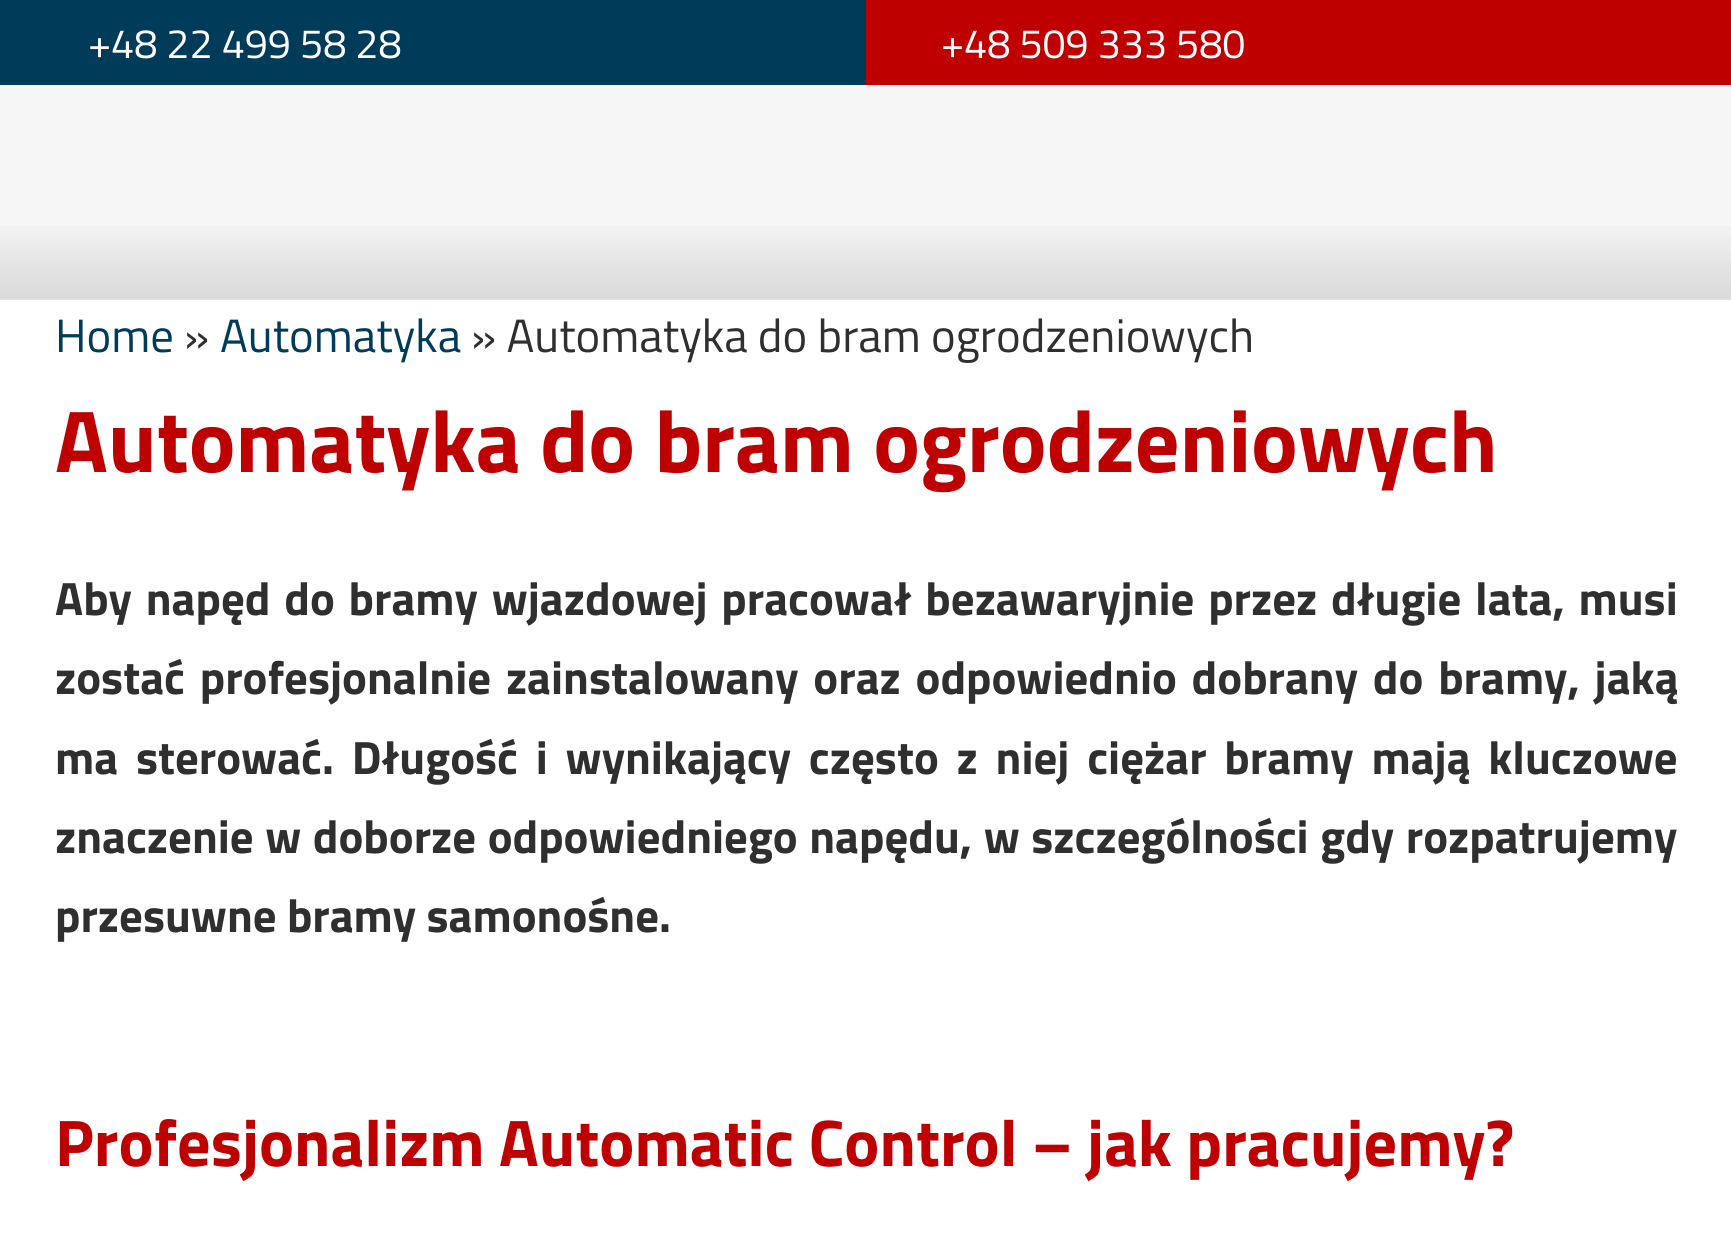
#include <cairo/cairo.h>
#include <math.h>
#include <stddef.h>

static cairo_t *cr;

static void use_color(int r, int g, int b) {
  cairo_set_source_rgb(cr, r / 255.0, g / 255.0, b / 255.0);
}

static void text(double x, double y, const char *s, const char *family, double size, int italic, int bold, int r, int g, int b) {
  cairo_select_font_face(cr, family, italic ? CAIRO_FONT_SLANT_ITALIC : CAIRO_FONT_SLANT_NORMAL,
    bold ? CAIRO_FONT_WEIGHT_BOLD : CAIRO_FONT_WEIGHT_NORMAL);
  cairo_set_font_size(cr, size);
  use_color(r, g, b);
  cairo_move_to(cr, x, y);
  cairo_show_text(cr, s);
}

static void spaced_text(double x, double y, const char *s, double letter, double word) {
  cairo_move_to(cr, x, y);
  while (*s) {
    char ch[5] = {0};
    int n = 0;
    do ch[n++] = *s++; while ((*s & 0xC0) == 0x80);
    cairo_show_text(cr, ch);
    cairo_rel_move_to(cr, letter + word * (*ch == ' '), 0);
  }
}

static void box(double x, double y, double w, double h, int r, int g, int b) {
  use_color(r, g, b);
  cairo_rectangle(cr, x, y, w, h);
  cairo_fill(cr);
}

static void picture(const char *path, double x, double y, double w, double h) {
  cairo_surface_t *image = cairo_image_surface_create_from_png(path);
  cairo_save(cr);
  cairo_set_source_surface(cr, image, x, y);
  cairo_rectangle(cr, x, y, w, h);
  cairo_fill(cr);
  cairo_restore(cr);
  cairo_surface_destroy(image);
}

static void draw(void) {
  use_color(255, 255, 255);
  cairo_paint(cr);
  box(0, 85, 1731, 215, 246, 246, 246);
  picture("img_01.png", 0, 226, 1731, 74);
  box(0, 0, 866, 85, 0, 59, 89);
  box(866, 0, 865, 85, 191, 0, 0);
  text(88, 58, "+48 22 499 58 28", "Titillium Web", 41.25, 0, 0, 255, 255, 255);
  text(941, 58, "+48 509 333 580", "Titillium Web", 41.25, 0, 0, 255, 255, 255);
  text(55, 352, "Home", "Titillium Web", 46.75, 0, 0, 0, 59, 89);
  text(184, 352, "»", "Titillium Web", 46.75, 0, 0, 47, 47, 47);
  text(220, 352, "Automatyka", "Titillium Web", 46.75, 0, 0, 0, 59, 89);
  text(471, 352, "» Automatyka do bram ogrodzeniowych", "Titillium Web", 46.75, 0, 0, 47, 47, 47);
  text(55, 472, "Automatyka do bram ogrodzeniowych", "Titillium Web", 88, 0, 1, 191, 0, 0);
  cairo_set_font_size(cr, 46.75);
  use_color(47, 47, 47);
  spaced_text(55, 615, "Aby napęd do bramy wjazdowej pracował bezawaryjnie przez długie lata, musi", 0, 3.5);
  spaced_text(55, 694, "zostać profesjonalnie zainstalowany oraz odpowiednio dobrany do bramy, jaką", 0, 4.5);
  spaced_text(55, 774, "ma sterować. Długość i wynikający często z niej ciężar bramy mają kluczowe", 0, 7.5);
  spaced_text(55, 853, "znaczenie w doborze odpowiedniego napędu, w szczególności gdy rozpatrujemy", 0, 1.25);
  text(55, 932, "przesuwne bramy samonośne.", "Titillium Web", 46.75, 0, 1, 47, 47, 47);
  text(55, 1166, "Profesjonalizm Automatic Control – jak pracujemy?", "Titillium Web", 66, 0, 1, 191, 0, 0);
}

int main(void) {
  cairo_surface_t *surface = cairo_image_surface_create(CAIRO_FORMAT_RGB24, 1731, 1239);
  cr = cairo_create(surface);
  cairo_font_options_t *options = cairo_font_options_create();
  cairo_font_options_set_hint_metrics(options, CAIRO_HINT_METRICS_OFF);
  cairo_font_options_set_hint_style(options, CAIRO_HINT_STYLE_NONE);
  cairo_set_font_options(cr, options);
  cairo_set_miter_limit(cr, 4);
  draw();
  cairo_surface_write_to_png(surface, "out.png");
  cairo_font_options_destroy(options);
  cairo_destroy(cr);
  cairo_surface_destroy(surface);
  return 0;
}
